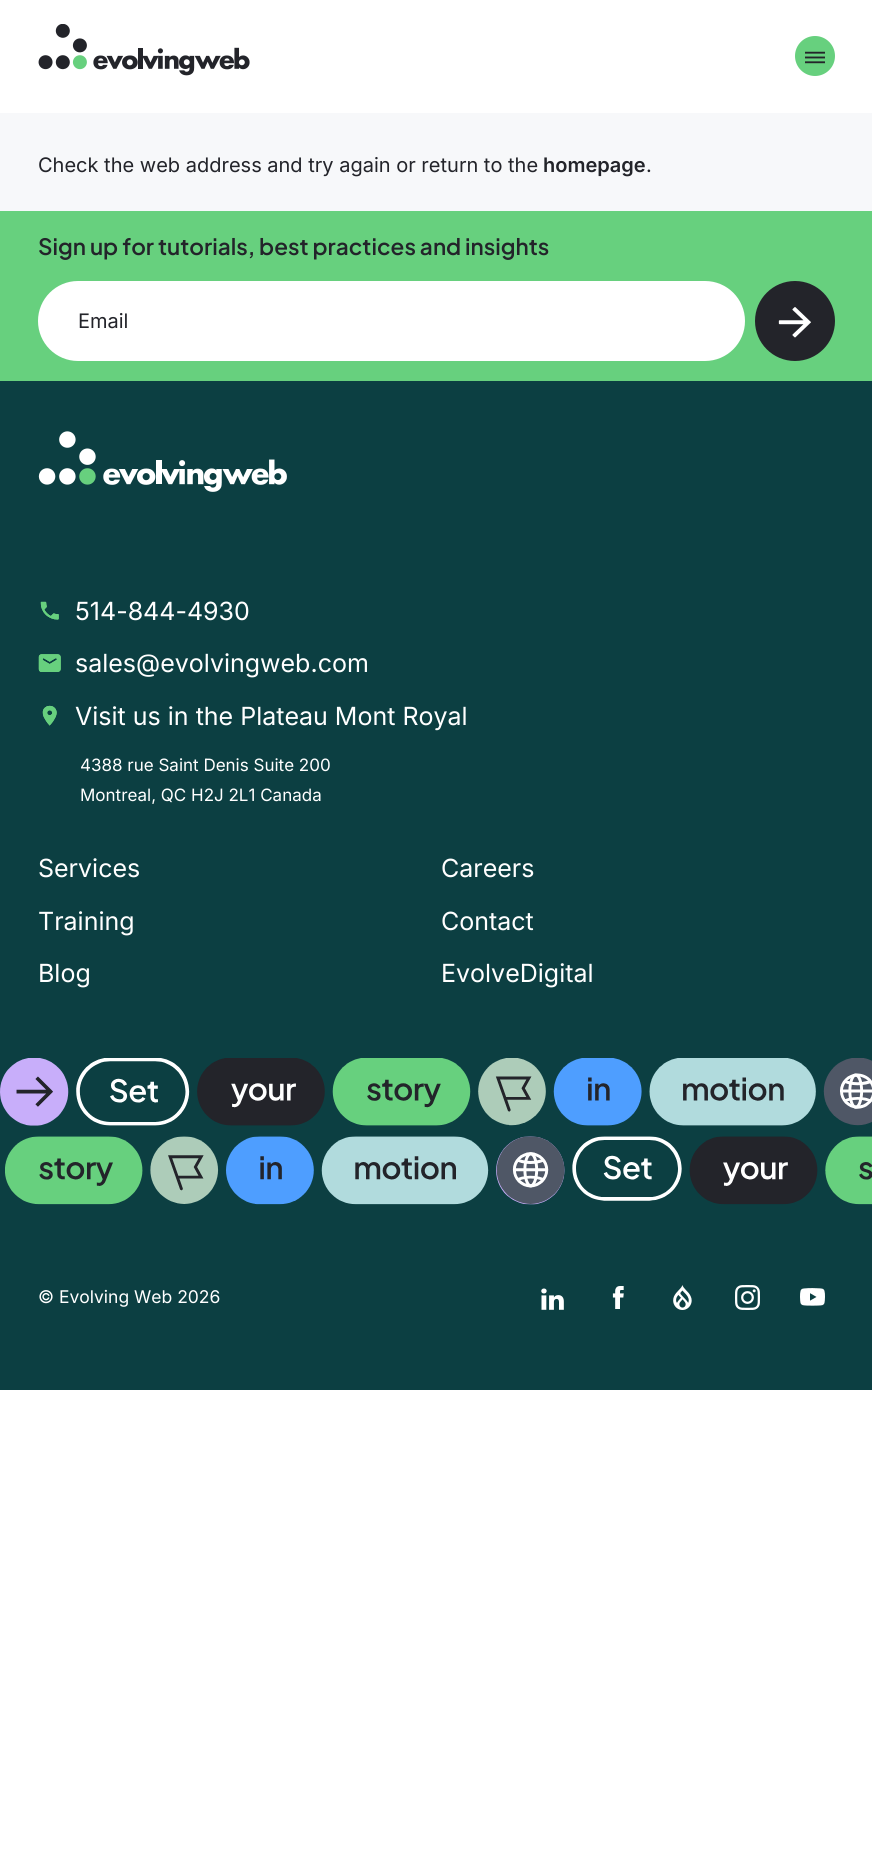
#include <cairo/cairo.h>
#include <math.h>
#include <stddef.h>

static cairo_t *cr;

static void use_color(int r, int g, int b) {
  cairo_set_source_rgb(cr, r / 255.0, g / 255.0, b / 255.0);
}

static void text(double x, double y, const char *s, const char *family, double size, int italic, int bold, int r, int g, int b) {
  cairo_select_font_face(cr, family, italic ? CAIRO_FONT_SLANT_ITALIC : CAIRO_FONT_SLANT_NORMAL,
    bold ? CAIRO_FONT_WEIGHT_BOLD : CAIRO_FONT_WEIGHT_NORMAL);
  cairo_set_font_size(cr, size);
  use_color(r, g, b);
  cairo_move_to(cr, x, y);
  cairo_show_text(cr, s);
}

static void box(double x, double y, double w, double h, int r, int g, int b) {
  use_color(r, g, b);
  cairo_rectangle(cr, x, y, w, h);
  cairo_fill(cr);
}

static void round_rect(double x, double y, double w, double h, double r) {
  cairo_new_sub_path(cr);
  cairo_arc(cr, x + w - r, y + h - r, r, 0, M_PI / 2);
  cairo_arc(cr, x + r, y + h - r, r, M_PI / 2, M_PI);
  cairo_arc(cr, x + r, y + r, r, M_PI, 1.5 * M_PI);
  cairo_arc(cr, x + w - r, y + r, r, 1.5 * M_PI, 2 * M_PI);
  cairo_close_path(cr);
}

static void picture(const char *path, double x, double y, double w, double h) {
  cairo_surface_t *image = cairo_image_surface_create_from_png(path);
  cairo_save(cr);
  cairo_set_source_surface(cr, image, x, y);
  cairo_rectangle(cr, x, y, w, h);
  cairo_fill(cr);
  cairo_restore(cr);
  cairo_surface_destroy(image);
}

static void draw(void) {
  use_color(255, 255, 255);
  cairo_paint(cr);
  picture("img_01.png", 38, 24, 212, 52);
  use_color(103, 208, 126);
  cairo_arc(cr, 815, 56, 20, 0, 2 * M_PI);
  cairo_fill(cr);
  picture("img_02.png", 805, 51, 20, 13);
  box(0, 113, 872, 98, 247, 248, 250);
  box(0, 211, 872, 170, 103, 208, 126);
  use_color(255, 255, 255);
  round_rect(38, 281, 707, 80, 40);
  cairo_fill(cr);
  use_color(35, 36, 42);
  cairo_arc(cr, 795, 321, 40, 0, 2 * M_PI);
  cairo_fill(cr);
  picture("img_03.png", 778, 307, 33, 31);
  box(0, 381, 872, 1009, 12, 63, 66);
  picture("img_04.png", 38, 431, 249, 61);
  picture("img_05.png", 40, 601, 19, 19);
  picture("img_06.png", 38, 654, 23, 18);
  picture("img_07.png", 42, 705, 15, 21);
  picture("img_08.png", 0, 1058, 872, 68);
  picture("img_09.png", 5, 1136, 867, 69);
  picture("img_10.png", 541, 1288, 23, 22);
  picture("img_11.png", 612, 1286, 12, 23);
  picture("img_12.png", 673, 1285, 19, 25);
  picture("img_13.png", 735, 1285, 25, 25);
  picture("img_14.png", 800, 1288, 25, 18);
  text(38, 172, "Check the web address and try again or return to the", "Inter", 20, 0, 0, 35, 36, 42);
  text(543, 172, "homepage", "Inter SemiBold", 20, 0, 0, 35, 36, 42);
  text(646, 172, ".", "Inter", 20, 0, 0, 35, 36, 42);
  text(38, 255, "Sign up for tutorials, best practices and insights", "Plus Jakarta Sans SemiBold", 22.5, 0, 0, 35, 36, 42);
  text(78, 328, "Email", "Inter", 20, 0, 0, 35, 36, 42);
  text(75, 620, "514-844-4930", "Inter", 25, 0, 0, 255, 255, 255);
  text(75, 672, "sales@evolvingweb.com", "Inter", 25, 0, 0, 255, 255, 255);
  text(75, 725, "Visit us in the Plateau Mont Royal", "Inter", 25, 0, 0, 255, 255, 255);
  text(80, 771, "4388 rue Saint Denis Suite 200", "Inter", 17, 0, 0, 255, 255, 255);
  text(80, 801, "Montreal, QC H2J 2L1 Canada", "Inter", 17, 0, 0, 255, 255, 255);
  text(38, 877, "Services", "Inter", 25, 0, 0, 255, 255, 255);
  text(441, 877, "Careers", "Inter", 25, 0, 0, 255, 255, 255);
  text(38, 930, "Training", "Inter", 25, 0, 0, 255, 255, 255);
  text(441, 930, "Contact", "Inter", 25, 0, 0, 255, 255, 255);
  text(38, 982, "Blog", "Inter", 25, 0, 0, 255, 255, 255);
  text(441, 982, "EvolveDigital", "Inter", 25, 0, 0, 255, 255, 255);
  text(38, 1303, "© Evolving Web 2026", "Inter", 17.5, 0, 0, 255, 255, 255);
}

int main(void) {
  cairo_surface_t *surface = cairo_image_surface_create(CAIRO_FORMAT_RGB24, 872, 1852);
  cr = cairo_create(surface);
  cairo_font_options_t *options = cairo_font_options_create();
  cairo_font_options_set_hint_metrics(options, CAIRO_HINT_METRICS_OFF);
  cairo_font_options_set_hint_style(options, CAIRO_HINT_STYLE_NONE);
  cairo_set_font_options(cr, options);
  cairo_set_miter_limit(cr, 4);
  draw();
  cairo_surface_write_to_png(surface, "out.png");
  cairo_font_options_destroy(options);
  cairo_destroy(cr);
  cairo_surface_destroy(surface);
  return 0;
}
